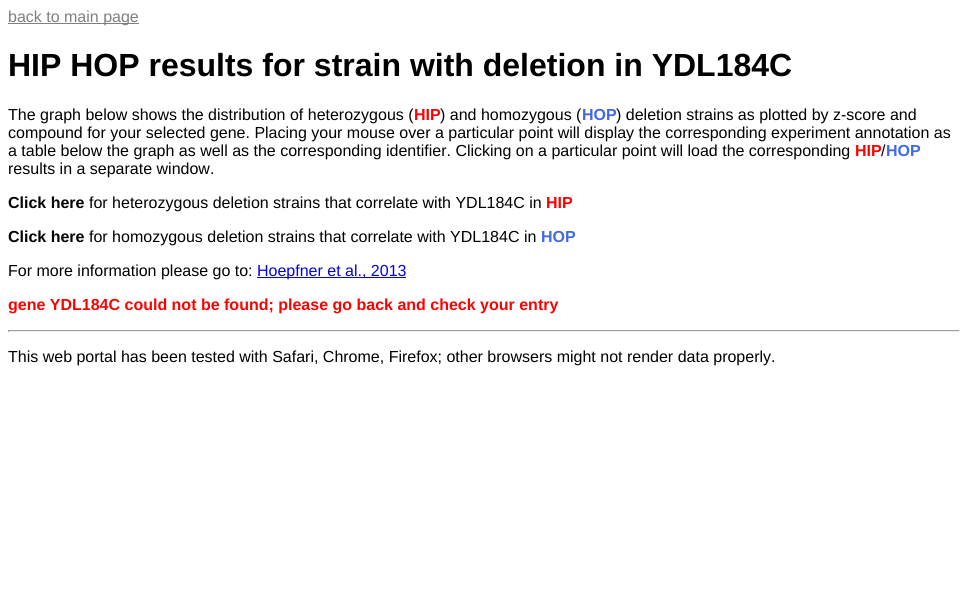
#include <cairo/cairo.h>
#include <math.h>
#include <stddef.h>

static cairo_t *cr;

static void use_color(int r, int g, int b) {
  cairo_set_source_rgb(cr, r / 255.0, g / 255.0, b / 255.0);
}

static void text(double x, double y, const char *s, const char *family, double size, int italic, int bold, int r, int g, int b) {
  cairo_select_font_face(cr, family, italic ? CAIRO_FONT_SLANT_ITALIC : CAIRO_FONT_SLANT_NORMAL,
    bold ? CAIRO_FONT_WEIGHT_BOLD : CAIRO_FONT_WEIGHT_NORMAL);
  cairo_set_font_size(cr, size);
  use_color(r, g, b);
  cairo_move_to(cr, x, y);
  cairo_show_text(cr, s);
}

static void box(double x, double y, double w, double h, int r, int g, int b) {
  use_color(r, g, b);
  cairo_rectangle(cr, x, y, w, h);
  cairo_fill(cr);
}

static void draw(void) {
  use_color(255, 255, 255);
  cairo_paint(cr);
  box(8, 23, 131, 1, 128, 128, 128);
  box(257, 277, 149, 1, 0, 0, 238);
  box(8, 330, 952, 1, 159, 159, 159);
  box(959, 330, 1, 2, 238, 238, 238);
  box(8, 331, 952, 1, 238, 238, 238);
  box(8, 330, 1, 2, 159, 159, 159);
  text(8, 22, "back to main page", "Liberation Sans", 16, 0, 0, 128, 128, 128);
  text(8, 76, "HIP HOP results for strain with deletion in YDL184C", "Liberation Sans", 32, 0, 1, 0, 0, 0);
  text(8, 120, "The graph below shows the distribution of heterozygous (", "Liberation Sans", 16, 0, 0, 0, 0, 0);
  text(414, 120, "HIP", "Liberation Sans", 16, 0, 1, 255, 0, 0);
  text(440, 120, ") and homozygous (", "Liberation Sans", 16, 0, 0, 0, 0, 0);
  text(582, 120, "HOP", "Liberation Sans", 16, 0, 1, 65, 105, 225);
  text(616, 120, ") deletion strains as plotted by z-score and", "Liberation Sans", 16, 0, 0, 0, 0, 0);
  text(8, 138, "compound for your selected gene. Placing your mouse over a particular point will display the corresponding experiment annotation as", "Liberation Sans", 16, 0, 0, 0, 0, 0);
  text(8, 156, "a table below the graph as well as the corresponding identifier. Clicking on a particular point will load the corresponding", "Liberation Sans", 16, 0, 0, 0, 0, 0);
  text(855, 156, "HIP", "Liberation Sans", 16, 0, 1, 255, 0, 0);
  text(881, 156, "/", "Liberation Sans", 16, 0, 0, 0, 0, 0);
  text(886, 156, "HOP", "Liberation Sans", 16, 0, 1, 65, 105, 225);
  text(8, 174, "results in a separate window.", "Liberation Sans", 16, 0, 0, 0, 0, 0);
  text(8, 208, "Click here", "Liberation Sans", 16, 0, 1, 0, 0, 0);
  text(89, 208, "for heterozygous deletion strains that correlate with YDL184C in", "Liberation Sans", 16, 0, 0, 0, 0, 0);
  text(546, 208, "HIP", "Liberation Sans", 16, 0, 1, 255, 0, 0);
  text(8, 242, "Click here", "Liberation Sans", 16, 0, 1, 0, 0, 0);
  text(89, 242, "for homozygous deletion strains that correlate with YDL184C in", "Liberation Sans", 16, 0, 0, 0, 0, 0);
  text(541, 242, "HOP", "Liberation Sans", 16, 0, 1, 65, 105, 225);
  text(8, 276, "For more information please go to:", "Liberation Sans", 16, 0, 0, 0, 0, 0);
  text(257, 276, "Hoepfner et al., 2013", "Liberation Sans", 16, 0, 0, 0, 0, 238);
  text(8, 310, "gene YDL184C could not be found; please go back and check your entry", "Liberation Sans", 16, 0, 1, 255, 0, 0);
  text(8, 362, "This web portal has been tested with Safari, Chrome, Firefox; other browsers might not render data properly.", "Liberation Sans", 16, 0, 0, 0, 0, 0);
}

int main(void) {
  cairo_surface_t *surface = cairo_image_surface_create(CAIRO_FORMAT_RGB24, 968, 616);
  cr = cairo_create(surface);
  cairo_font_options_t *options = cairo_font_options_create();
  cairo_font_options_set_hint_metrics(options, CAIRO_HINT_METRICS_OFF);
  cairo_font_options_set_hint_style(options, CAIRO_HINT_STYLE_NONE);
  cairo_set_font_options(cr, options);
  cairo_set_miter_limit(cr, 4);
  draw();
  cairo_surface_write_to_png(surface, "out.png");
  cairo_font_options_destroy(options);
  cairo_destroy(cr);
  cairo_surface_destroy(surface);
  return 0;
}
